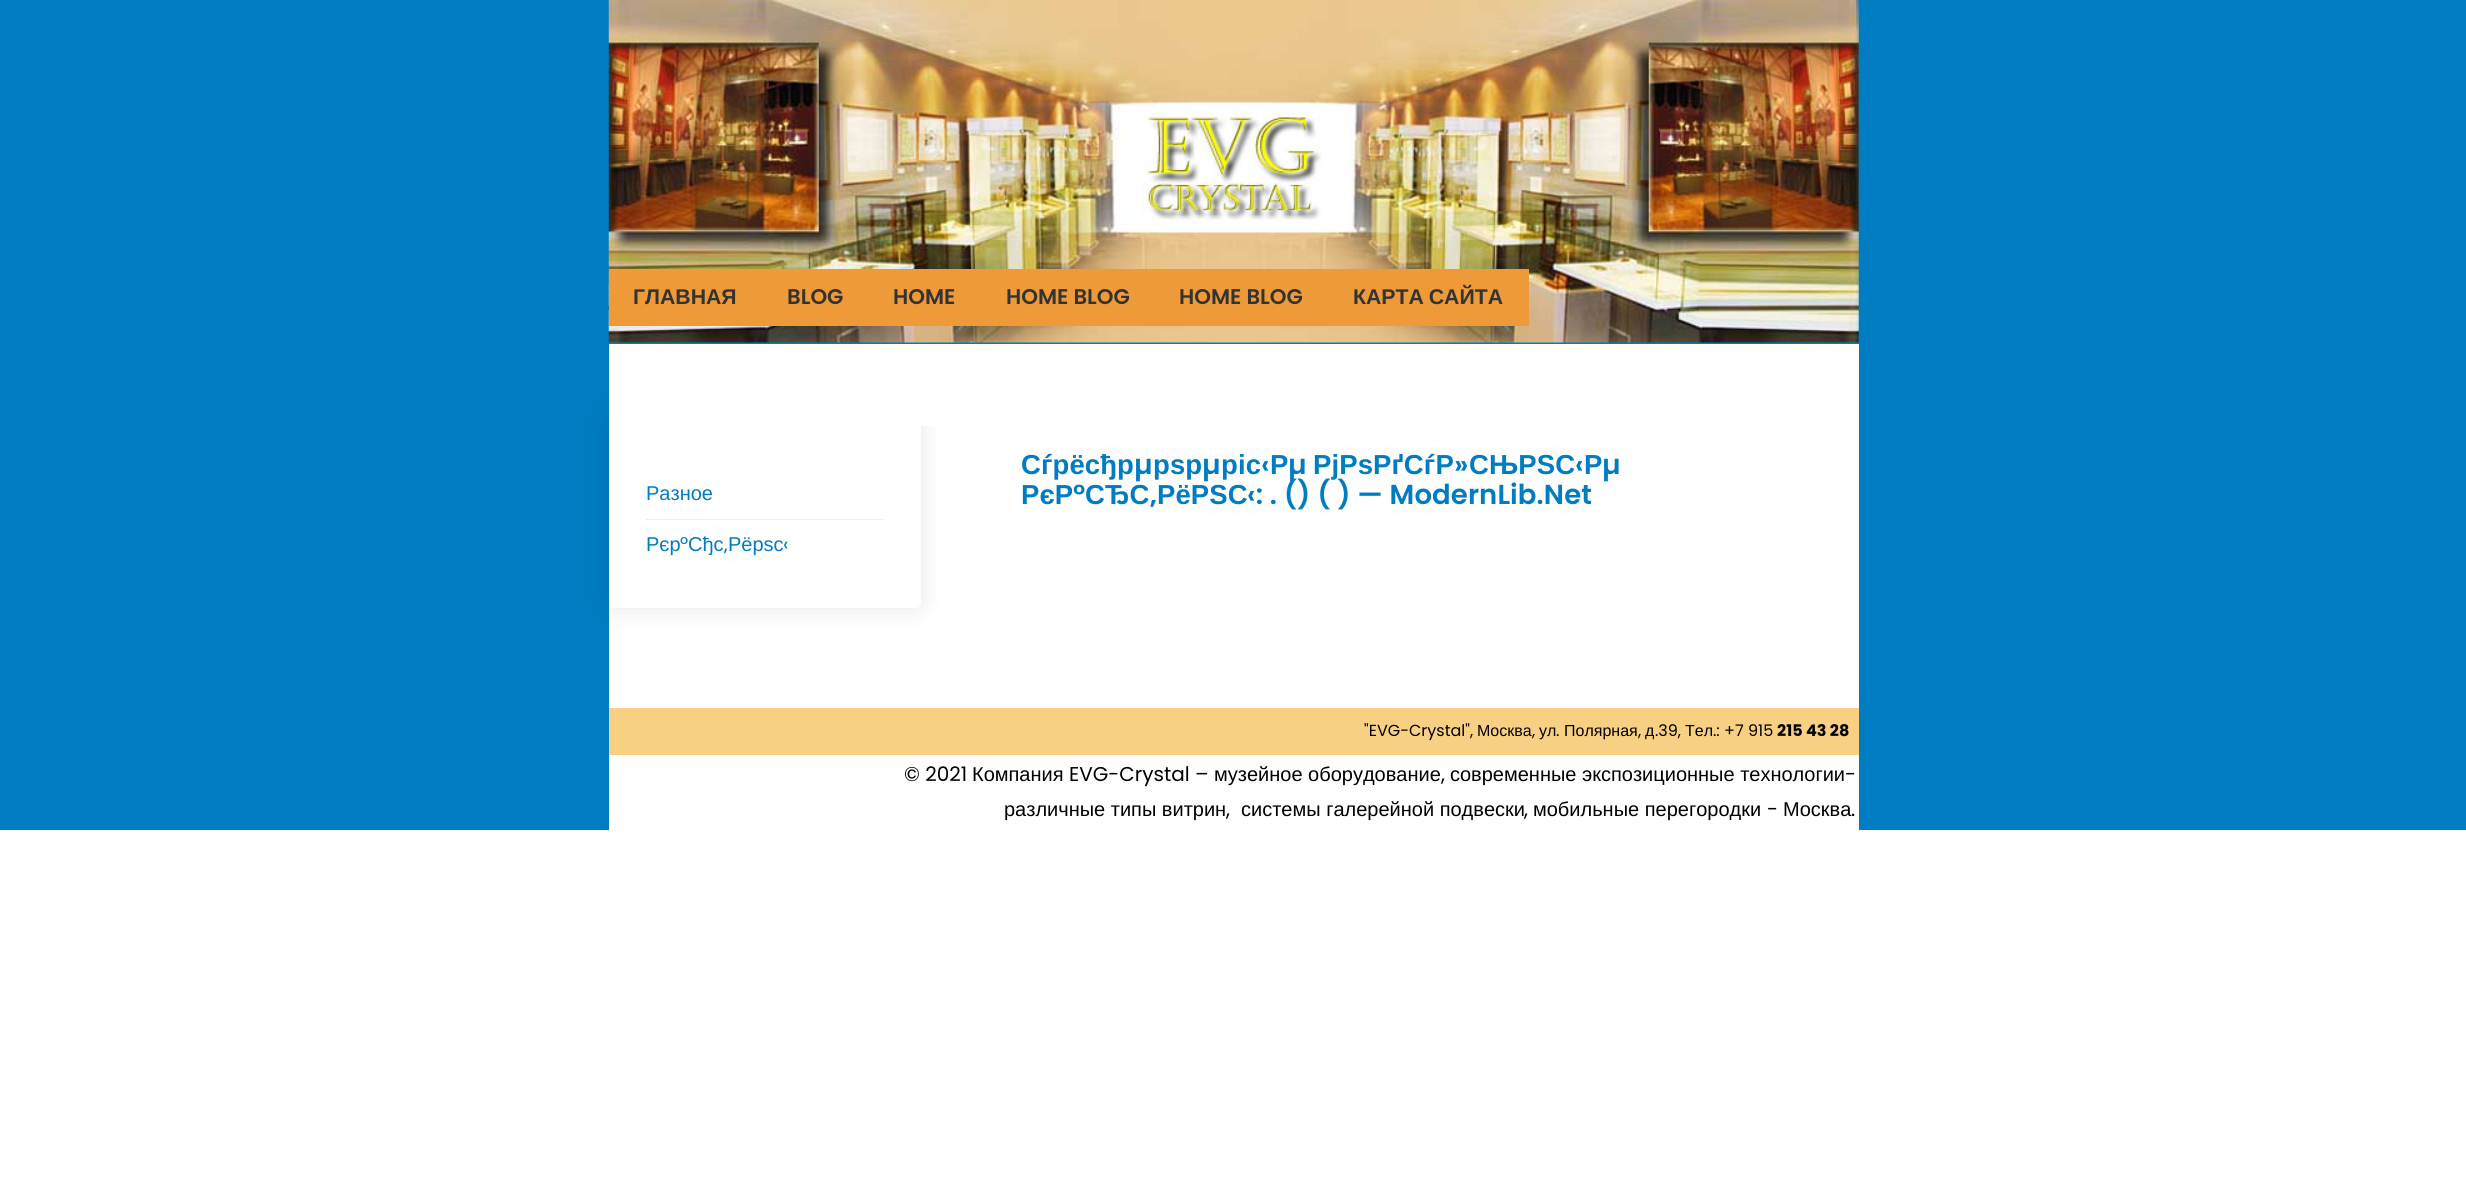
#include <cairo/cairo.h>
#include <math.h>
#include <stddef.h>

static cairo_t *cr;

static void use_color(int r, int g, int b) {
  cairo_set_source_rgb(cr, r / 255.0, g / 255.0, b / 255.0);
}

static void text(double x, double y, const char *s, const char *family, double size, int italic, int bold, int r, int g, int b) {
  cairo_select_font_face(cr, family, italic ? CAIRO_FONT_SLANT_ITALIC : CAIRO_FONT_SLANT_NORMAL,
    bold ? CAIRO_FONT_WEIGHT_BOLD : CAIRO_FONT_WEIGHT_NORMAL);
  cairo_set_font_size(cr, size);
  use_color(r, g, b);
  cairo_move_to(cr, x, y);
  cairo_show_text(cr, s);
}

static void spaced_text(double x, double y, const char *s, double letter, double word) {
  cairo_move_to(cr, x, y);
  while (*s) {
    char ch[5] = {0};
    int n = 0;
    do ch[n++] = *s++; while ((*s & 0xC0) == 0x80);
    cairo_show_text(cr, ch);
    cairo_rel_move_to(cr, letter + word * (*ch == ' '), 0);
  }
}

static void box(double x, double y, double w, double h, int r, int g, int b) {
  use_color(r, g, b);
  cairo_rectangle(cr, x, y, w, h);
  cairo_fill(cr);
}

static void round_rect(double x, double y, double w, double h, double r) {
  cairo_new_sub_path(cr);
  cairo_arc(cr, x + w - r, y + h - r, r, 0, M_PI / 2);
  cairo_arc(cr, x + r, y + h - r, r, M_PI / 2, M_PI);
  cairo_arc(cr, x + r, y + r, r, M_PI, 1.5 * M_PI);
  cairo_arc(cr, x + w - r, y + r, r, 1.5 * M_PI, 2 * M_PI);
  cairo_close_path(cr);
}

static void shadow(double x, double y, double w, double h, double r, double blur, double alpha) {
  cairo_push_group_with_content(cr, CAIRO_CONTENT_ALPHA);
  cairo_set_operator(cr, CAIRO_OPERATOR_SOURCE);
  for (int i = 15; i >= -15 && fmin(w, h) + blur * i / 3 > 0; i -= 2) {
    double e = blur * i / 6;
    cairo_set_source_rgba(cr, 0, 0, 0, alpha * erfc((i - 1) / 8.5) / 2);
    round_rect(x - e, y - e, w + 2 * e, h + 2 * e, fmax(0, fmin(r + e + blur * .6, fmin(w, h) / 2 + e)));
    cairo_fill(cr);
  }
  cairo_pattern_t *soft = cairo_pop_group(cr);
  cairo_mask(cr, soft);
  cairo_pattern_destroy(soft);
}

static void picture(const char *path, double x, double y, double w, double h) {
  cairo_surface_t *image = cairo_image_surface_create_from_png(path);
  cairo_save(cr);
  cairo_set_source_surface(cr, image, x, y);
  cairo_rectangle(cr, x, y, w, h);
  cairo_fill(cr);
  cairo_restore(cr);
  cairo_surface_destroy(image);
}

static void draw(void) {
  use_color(255, 255, 255);
  cairo_paint(cr);
  box(0, 0, 2466, 830, 0, 124, 194);
  picture("img_01.png", 608, 0, 1251, 343);
  picture("img_02.png", 1142, 112, 180, 108);
  box(609, 426, 1250, 282, 255, 255, 255);
  cairo_save(cr);
  cairo_set_fill_rule(cr, CAIRO_FILL_RULE_EVEN_ODD);
  cairo_new_path(cr);
  cairo_move_to(cr, 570, 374);
  cairo_line_to(cr, 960, 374);
  cairo_line_to(cr, 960, 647);
  cairo_line_to(cr, 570, 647);
  cairo_close_path(cr);
  cairo_move_to(cr, 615, 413);
  cairo_line_to(cr, 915, 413);
  cairo_curve_to(cr, 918.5, 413, 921, 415.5, 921, 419);
  cairo_line_to(cr, 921, 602);
  cairo_curve_to(cr, 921, 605.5, 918.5, 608, 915, 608);
  cairo_line_to(cr, 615, 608);
  cairo_curve_to(cr, 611.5, 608, 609, 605.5, 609, 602);
  cairo_line_to(cr, 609, 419);
  cairo_curve_to(cr, 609, 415.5, 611.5, 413, 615, 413);
  cairo_close_path(cr);
  cairo_clip(cr);
  use_color(0, 0, 0);
  shadow(609, 413, 312, 195, 6, 12.5, 0.1);
  cairo_restore(cr);
  box(609, 344, 1250, 82, 255, 255, 255);
  box(609, 269, 920, 57, 238, 154, 56);
  box(646, 519, 238, 1, 238, 238, 238);
  box(609, 755, 1250, 75, 255, 255, 255);
  box(609, 708, 1250, 47, 247, 208, 131);
  text(633, 304, "ГЛАВНАЯ", "Liberation Sans", 21.25, 0, 1, 51, 51, 51);
  text(787, 304, "BLOG", "Poppins SemiBold", 21.25, 0, 0, 51, 51, 51);
  text(893, 304, "HOME", "Poppins SemiBold", 21.25, 0, 0, 51, 51, 51);
  text(1006, 304, "HOME BLOG", "Poppins SemiBold", 21.25, 0, 0, 51, 51, 51);
  text(1179, 304, "HOME BLOG", "Poppins SemiBold", 21.25, 0, 0, 51, 51, 51);
  cairo_select_font_face(cr, "Liberation Sans", CAIRO_FONT_SLANT_NORMAL, CAIRO_FONT_WEIGHT_BOLD);
  spaced_text(1353, 304, "КАРТА САЙТА", 0, -1);
  text(646, 500, "Разное", "Liberation Sans", 20, 0, 0, 0, 124, 194);
  text(646, 551, "Рєр", "Liberation Sans", 20, 0, 0, 0, 124, 194);
  text(680, 551, "°", "Poppins", 20, 0, 0, 0, 124, 194);
  text(688, 551, "Сђс", "Liberation Sans", 20, 0, 0, 0, 124, 194);
  text(728, 551, "Рёрѕс", "Liberation Sans", 20, 0, 0, 0, 124, 194);
  text(783, 551, "‹", "Poppins", 20, 0, 0, 0, 124, 194);
  text(724, 551, "‚", "Poppins", 20, 0, 0, 0, 124, 194);
  cairo_select_font_face(cr, "Liberation Sans", CAIRO_FONT_SLANT_NORMAL, CAIRO_FONT_WEIGHT_BOLD);
  cairo_set_font_size(cr, 27.5);
  spaced_text(1021, 474, "Сѓрёсђр", 0.1, 0);
  cairo_select_font_face(cr, "Poppins SemiBold", CAIRO_FONT_SLANT_NORMAL, CAIRO_FONT_WEIGHT_NORMAL);
  spaced_text(1134, 474, "µ", 0.1, 0);
  cairo_select_font_face(cr, "Liberation Sans", CAIRO_FONT_SLANT_NORMAL, CAIRO_FONT_WEIGHT_BOLD);
  spaced_text(1153, 474, "рѕр", 0.1, 0);
  cairo_select_font_face(cr, "Poppins SemiBold", CAIRO_FONT_SLANT_NORMAL, CAIRO_FONT_WEIGHT_NORMAL);
  spaced_text(1202, 474, "µ", 0.1, 0);
  cairo_select_font_face(cr, "Liberation Sans", CAIRO_FONT_SLANT_NORMAL, CAIRO_FONT_WEIGHT_BOLD);
  spaced_text(1221, 474, "ріс", 0.1, 0);
  cairo_select_font_face(cr, "Poppins SemiBold", CAIRO_FONT_SLANT_NORMAL, CAIRO_FONT_WEIGHT_NORMAL);
  spaced_text(1261, 474, "‹", 0.1, 0);
  cairo_select_font_face(cr, "Liberation Sans", CAIRO_FONT_SLANT_NORMAL, CAIRO_FONT_WEIGHT_BOLD);
  spaced_text(1270, 474, "Р", 0.1, 0);
  cairo_select_font_face(cr, "Poppins SemiBold", CAIRO_FONT_SLANT_NORMAL, CAIRO_FONT_WEIGHT_NORMAL);
  spaced_text(1288, 474, "µ", 0.1, 0);
  cairo_select_font_face(cr, "Liberation Sans", CAIRO_FONT_SLANT_NORMAL, CAIRO_FONT_WEIGHT_BOLD);
  spaced_text(1313, 474, "РјРѕРґСѓР", 0.1, 0);
  cairo_select_font_face(cr, "Poppins SemiBold", CAIRO_FONT_SLANT_NORMAL, CAIRO_FONT_WEIGHT_NORMAL);
  spaced_text(1454, 474, "»", 0.1, 0);
  cairo_select_font_face(cr, "Liberation Sans", CAIRO_FONT_SLANT_NORMAL, CAIRO_FONT_WEIGHT_BOLD);
  spaced_text(1469, 474, "СЊРЅС", 0.1, 0);
  cairo_select_font_face(cr, "Poppins SemiBold", CAIRO_FONT_SLANT_NORMAL, CAIRO_FONT_WEIGHT_NORMAL);
  spaced_text(1575, 474, "‹", 0.1, 0);
  cairo_select_font_face(cr, "Liberation Sans", CAIRO_FONT_SLANT_NORMAL, CAIRO_FONT_WEIGHT_BOLD);
  spaced_text(1584, 474, "Р", 0.1, 0);
  cairo_select_font_face(cr, "Poppins SemiBold", CAIRO_FONT_SLANT_NORMAL, CAIRO_FONT_WEIGHT_NORMAL);
  spaced_text(1602, 474, "µ", 0.1, 0);
  cairo_select_font_face(cr, "Liberation Sans", CAIRO_FONT_SLANT_NORMAL, CAIRO_FONT_WEIGHT_BOLD);
  spaced_text(1021, 504, "РєР", 0.1, 0);
  cairo_select_font_face(cr, "Poppins SemiBold", CAIRO_FONT_SLANT_NORMAL, CAIRO_FONT_WEIGHT_NORMAL);
  spaced_text(1073, 504, "°", 0.1, 0);
  cairo_select_font_face(cr, "Liberation Sans", CAIRO_FONT_SLANT_NORMAL, CAIRO_FONT_WEIGHT_BOLD);
  spaced_text(1085, 504, "СЂС", 0.1, 0);
  cairo_select_font_face(cr, "Poppins SemiBold", CAIRO_FONT_SLANT_NORMAL, CAIRO_FONT_WEIGHT_NORMAL);
  spaced_text(1150, 504, "‚", 0.1, 0);
  cairo_select_font_face(cr, "Liberation Sans", CAIRO_FONT_SLANT_NORMAL, CAIRO_FONT_WEIGHT_BOLD);
  spaced_text(1157, 504, "РёРЅС", 0.1, 0);
  cairo_select_font_face(cr, "Poppins SemiBold", CAIRO_FONT_SLANT_NORMAL, CAIRO_FONT_WEIGHT_NORMAL);
  spaced_text(1247, 504, "‹: . () ( ) — ModernLib.Net", 0.1, 0);
  text(1364, 736, "\"EVG-Crystal\",", "Poppins", 16, 0, 0, 0, 0, 0);
  text(1477, 736, "Москва", "Liberation Sans", 16, 0, 0, 0, 0, 0);
  text(1532, 736, ",", "Poppins", 16, 0, 0, 0, 0, 0);
  text(1539, 736, "ул", "Liberation Sans", 16, 0, 0, 0, 0, 0);
  text(1556, 736, ".", "Poppins", 16, 0, 0, 0, 0, 0);
  text(1564, 736, "Полярная", "Liberation Sans", 16, 0, 0, 0, 0, 0);
  text(1638, 736, ",", "Poppins", 16, 0, 0, 0, 0, 0);
  text(1645, 736, "д", "Liberation Sans", 16, 0, 0, 0, 0, 0);
  text(1655, 736, ".39,", "Poppins", 16, 0, 0, 0, 0, 0);
  text(1685, 736, "Тел", "Liberation Sans", 16, 0, 0, 0, 0, 0);
  text(1713, 736, ".: +7 915", "Poppins", 16, 0, 0, 0, 0, 0);
  text(1777, 736, "215 43 28", "Poppins", 16, 0, 1, 0, 0, 0);
  text(904, 781, "© 2021", "Poppins", 20, 0, 0, 0, 0, 0);
  text(972, 781, "Компания", "Liberation Sans", 20, 0, 0, 0, 0, 0);
  text(1069, 781, "EVG-Crystal –", "Poppins", 20, 0, 0, 0, 0, 0);
  text(1214, 781, "музейное оборудование", "Liberation Sans", 20, 0, 0, 0, 0, 0);
  text(1450, 781, "современные экспозиционные технологии", "Liberation Sans", 20, 0, 0, 0, 0, 0);
  text(1845, 781, "-", "Poppins", 20, 0, 0, 0, 0, 0);
  text(1441, 781, ",", "Poppins", 20, 0, 0, 0, 0, 0);
  text(1004, 816, "различные типы витрин", "Liberation Sans", 20, 0, 0, 0, 0, 0);
  text(1241, 816, "системы галерейной подвески", "Liberation Sans", 20, 0, 0, 0, 0, 0);
  text(1533, 816, "мобильные перегородки", "Liberation Sans", 20, 0, 0, 0, 0, 0);
  text(1767, 816, "-", "Poppins", 20, 0, 0, 0, 0, 0);
  text(1783, 816, "Москва", "Liberation Sans", 20, 0, 0, 0, 0, 0);
  text(1226, 816, ",", "Poppins", 20, 0, 0, 0, 0, 0);
  text(1524, 816, ",", "Poppins", 20, 0, 0, 0, 0, 0);
  text(1851, 816, ".", "Poppins", 20, 0, 0, 0, 0, 0);
}

int main(void) {
  cairo_surface_t *surface = cairo_image_surface_create(CAIRO_FORMAT_RGB24, 2466, 1203);
  cr = cairo_create(surface);
  cairo_font_options_t *options = cairo_font_options_create();
  cairo_font_options_set_hint_metrics(options, CAIRO_HINT_METRICS_OFF);
  cairo_font_options_set_hint_style(options, CAIRO_HINT_STYLE_NONE);
  cairo_set_font_options(cr, options);
  cairo_set_miter_limit(cr, 4);
  draw();
  cairo_surface_write_to_png(surface, "out.png");
  cairo_font_options_destroy(options);
  cairo_destroy(cr);
  cairo_surface_destroy(surface);
  return 0;
}
